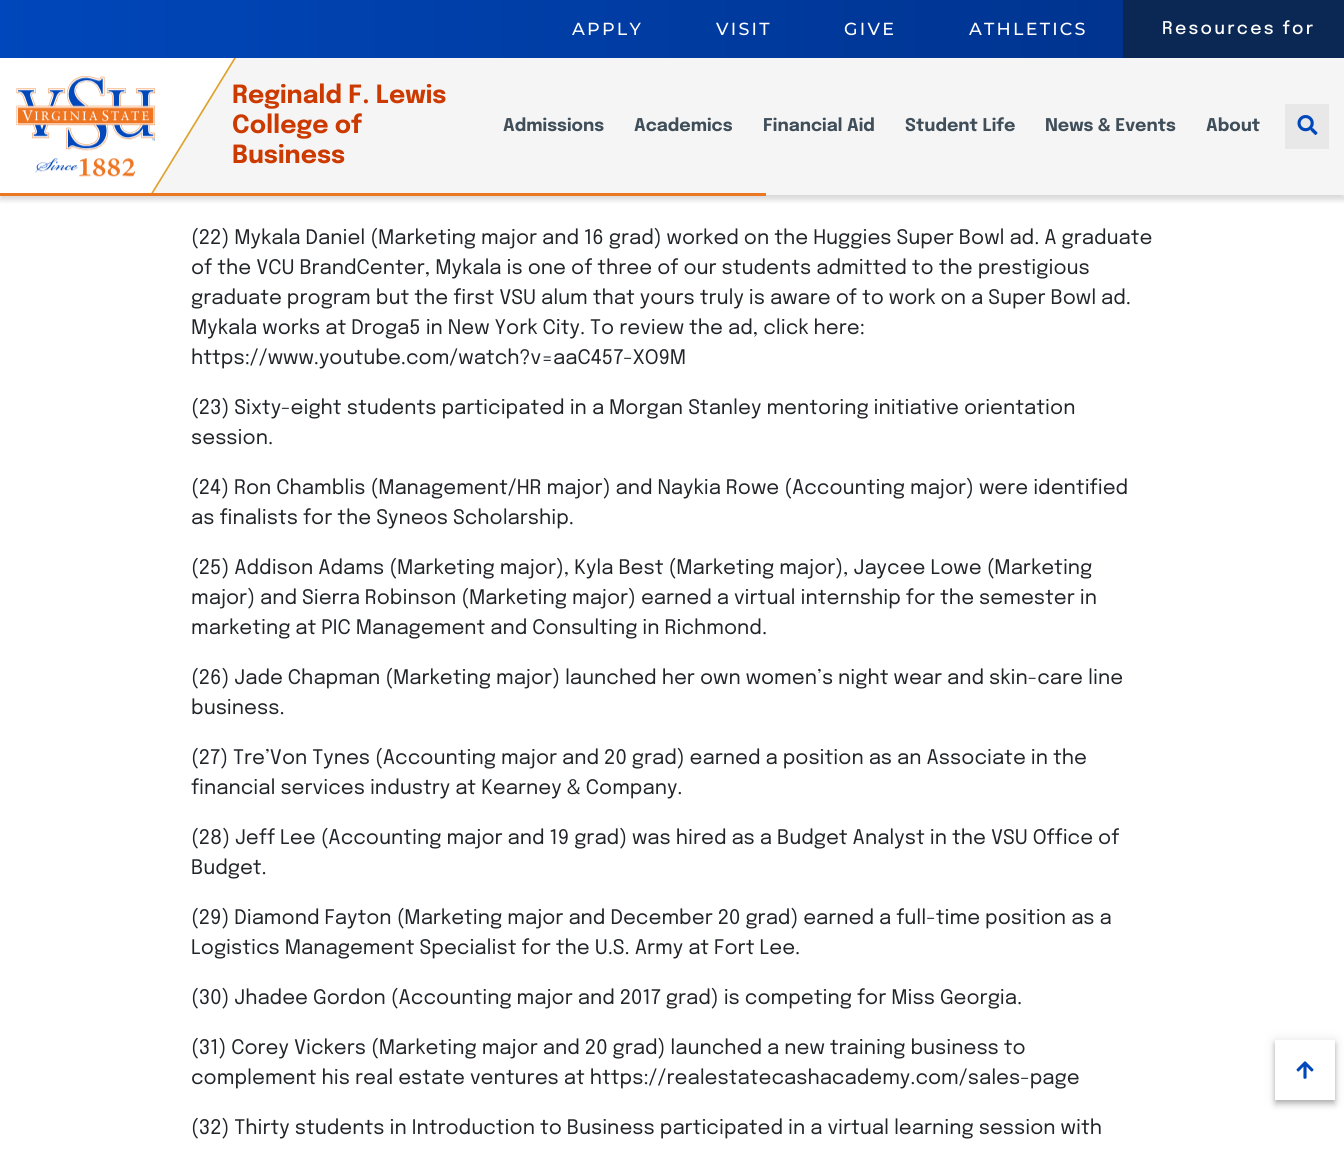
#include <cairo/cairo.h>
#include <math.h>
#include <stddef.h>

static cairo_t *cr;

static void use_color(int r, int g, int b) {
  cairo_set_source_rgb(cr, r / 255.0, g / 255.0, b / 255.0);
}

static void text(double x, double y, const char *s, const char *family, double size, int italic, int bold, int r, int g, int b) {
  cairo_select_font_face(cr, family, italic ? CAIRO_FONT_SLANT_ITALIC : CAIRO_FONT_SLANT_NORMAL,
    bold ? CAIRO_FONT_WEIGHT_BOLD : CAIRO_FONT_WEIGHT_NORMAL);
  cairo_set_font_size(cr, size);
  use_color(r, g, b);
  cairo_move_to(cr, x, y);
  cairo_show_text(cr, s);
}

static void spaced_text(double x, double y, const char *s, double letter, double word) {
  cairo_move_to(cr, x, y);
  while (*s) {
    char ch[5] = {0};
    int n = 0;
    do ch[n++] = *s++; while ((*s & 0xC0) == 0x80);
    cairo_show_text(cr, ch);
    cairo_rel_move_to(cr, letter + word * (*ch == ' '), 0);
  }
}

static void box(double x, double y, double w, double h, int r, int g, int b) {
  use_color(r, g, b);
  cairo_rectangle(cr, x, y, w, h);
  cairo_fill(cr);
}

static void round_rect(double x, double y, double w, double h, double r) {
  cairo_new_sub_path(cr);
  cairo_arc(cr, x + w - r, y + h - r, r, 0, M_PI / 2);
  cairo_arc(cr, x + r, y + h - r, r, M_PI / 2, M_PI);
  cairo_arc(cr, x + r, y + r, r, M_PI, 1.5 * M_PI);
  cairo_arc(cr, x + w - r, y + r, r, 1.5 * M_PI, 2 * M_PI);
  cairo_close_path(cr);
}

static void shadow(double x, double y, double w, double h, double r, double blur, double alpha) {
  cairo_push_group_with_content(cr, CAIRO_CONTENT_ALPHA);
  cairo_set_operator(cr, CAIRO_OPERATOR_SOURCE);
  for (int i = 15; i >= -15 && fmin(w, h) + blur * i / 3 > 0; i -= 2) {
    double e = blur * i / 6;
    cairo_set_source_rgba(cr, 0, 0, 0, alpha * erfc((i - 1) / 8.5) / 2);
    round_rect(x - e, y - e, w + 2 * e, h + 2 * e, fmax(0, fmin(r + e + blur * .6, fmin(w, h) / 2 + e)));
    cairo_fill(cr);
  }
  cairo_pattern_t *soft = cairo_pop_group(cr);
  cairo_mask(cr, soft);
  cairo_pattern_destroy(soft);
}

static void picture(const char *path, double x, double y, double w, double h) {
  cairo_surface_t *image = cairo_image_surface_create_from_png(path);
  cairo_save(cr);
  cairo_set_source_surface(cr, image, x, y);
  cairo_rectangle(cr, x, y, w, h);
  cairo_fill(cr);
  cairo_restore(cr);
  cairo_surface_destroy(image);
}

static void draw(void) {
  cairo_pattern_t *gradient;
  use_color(255, 255, 255);
  cairo_paint(cr);
  use_color(0, 0, 0);
  shadow(0, 5, 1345, 195, 0, 2.5, 0.15);
  gradient = cairo_pattern_create_linear(0, 29, 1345, 29);
  cairo_pattern_add_color_stop_rgba(gradient, 0, 0, 0.278, 0.733, 1);
  cairo_pattern_add_color_stop_rgba(gradient, 1, 0, 0.188, 0.529, 1);
  cairo_set_source(cr, gradient);
  cairo_pattern_destroy(gradient);
  cairo_rectangle(cr, 0, 0, 1123, 58);
  cairo_fill(cr);
  box(1123, 0, 221, 58, 11, 39, 83);
  box(153, 58, 1191, 137, 245, 245, 245);
  use_color(222, 163, 47);
  cairo_new_path(cr);
  cairo_move_to(cr, -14, 58);
  cairo_line_to(cr, 236, 58);
  cairo_line_to(cr, 152, 195);
  cairo_line_to(cr, -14, 195);
  cairo_close_path(cr);
  cairo_fill(cr);
  use_color(255, 255, 255);
  cairo_new_path(cr);
  cairo_move_to(cr, -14, 58);
  cairo_line_to(cr, 234, 58);
  cairo_line_to(cr, 150, 195);
  cairo_line_to(cr, -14, 195);
  cairo_close_path(cr);
  cairo_fill(cr);
  picture("img_01.png", 16, 76, 139, 101);
  box(1285, 104, 44, 45, 232, 232, 232);
  picture("img_02.png", 1297, 115, 21, 20);
  box(0, 193, 766, 3, 235, 119, 34);
  cairo_save(cr);
  cairo_set_fill_rule(cr, CAIRO_FILL_RULE_EVEN_ODD);
  cairo_new_path(cr);
  cairo_move_to(cr, 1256, 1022);
  cairo_line_to(cr, 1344, 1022);
  cairo_line_to(cr, 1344, 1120);
  cairo_line_to(cr, 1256, 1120);
  cairo_close_path(cr);
  cairo_move_to(cr, 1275, 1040);
  cairo_line_to(cr, 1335, 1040);
  cairo_line_to(cr, 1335, 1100);
  cairo_line_to(cr, 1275, 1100);
  cairo_close_path(cr);
  cairo_clip(cr);
  use_color(0, 0, 0);
  shadow(1275, 1041, 60, 60, 0, 6, 0.12);
  cairo_restore(cr);
  cairo_save(cr);
  cairo_set_fill_rule(cr, CAIRO_FILL_RULE_EVEN_ODD);
  cairo_new_path(cr);
  cairo_move_to(cr, 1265, 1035);
  cairo_line_to(cr, 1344, 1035);
  cairo_line_to(cr, 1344, 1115);
  cairo_line_to(cr, 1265, 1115);
  cairo_close_path(cr);
  cairo_move_to(cr, 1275, 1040);
  cairo_line_to(cr, 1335, 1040);
  cairo_line_to(cr, 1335, 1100);
  cairo_line_to(cr, 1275, 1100);
  cairo_close_path(cr);
  cairo_clip(cr);
  use_color(0, 0, 0);
  shadow(1275, 1045, 60, 60, 0, 3, 0.14);
  cairo_restore(cr);
  cairo_save(cr);
  cairo_set_fill_rule(cr, CAIRO_FILL_RULE_EVEN_ODD);
  cairo_new_path(cr);
  cairo_move_to(cr, 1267, 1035);
  cairo_line_to(cr, 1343, 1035);
  cairo_line_to(cr, 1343, 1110);
  cairo_line_to(cr, 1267, 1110);
  cairo_close_path(cr);
  cairo_move_to(cr, 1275, 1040);
  cairo_line_to(cr, 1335, 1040);
  cairo_line_to(cr, 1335, 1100);
  cairo_line_to(cr, 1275, 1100);
  cairo_close_path(cr);
  cairo_clip(cr);
  use_color(0, 0, 0);
  shadow(1276, 1044, 58, 57, 0, 2.5, 0.2);
  cairo_restore(cr);
  picture("img_03.png", 1296, 1061, 18, 18);
  cairo_select_font_face(cr, "Montserrat Medium", CAIRO_FONT_SLANT_NORMAL, CAIRO_FONT_WEIGHT_NORMAL);
  cairo_set_font_size(cr, 17.5);
  use_color(255, 255, 255);
  spaced_text(572, 35, "APPLY", 2.25, 0);
  spaced_text(716, 35, "VISIT", 2.25, 0);
  spaced_text(844, 35, "GIVE", 2.25, 0);
  spaced_text(969, 35, "ATHLETICS", 2.25, 0);
  cairo_select_font_face(cr, "Epilogue Medium", CAIRO_FONT_SLANT_NORMAL, CAIRO_FONT_WEIGHT_NORMAL);
  spaced_text(1162, 34, "Resources for", 2.25, 0);
  text(232, 103, "Reginald F. Lewis", "Epilogue", 25, 0, 1, 204, 58, 0);
  text(232, 133, "College of", "Epilogue", 25, 0, 1, 204, 58, 0);
  text(232, 163, "Business", "Epilogue", 25, 0, 1, 204, 58, 0);
  text(503, 131, "Admissions", "Epilogue", 17.5, 0, 1, 63, 78, 89);
  text(634, 131, "Academics", "Epilogue", 17.5, 0, 1, 63, 78, 89);
  text(763, 131, "Financial Aid", "Epilogue", 17.5, 0, 1, 63, 78, 89);
  text(905, 131, "Student Life", "Epilogue", 17.5, 0, 1, 63, 78, 89);
  text(1045, 131, "News & Events", "Epilogue", 17.5, 0, 1, 63, 78, 89);
  text(1206, 131, "About", "Epilogue", 17.5, 0, 1, 63, 78, 89);
  text(191, 244, "(22) Mykala Daniel (Marketing major and 16 grad) worked on the Huggies Super Bowl ad. A graduate", "Epilogue", 20, 0, 0, 33, 37, 41);
  text(191, 274, "of the VCU BrandCenter, Mykala is one of three of our students admitted to the prestigious", "Epilogue", 20, 0, 0, 33, 37, 41);
  text(191, 304, "graduate program but the first VSU alum that yours truly is aware of to work on a Super Bowl ad.", "Epilogue", 20, 0, 0, 33, 37, 41);
  text(191, 334, "Mykala works at Droga5 in New York City. To review the ad, click here:", "Epilogue", 20, 0, 0, 33, 37, 41);
  text(191, 364, "https://www.youtube.com/watch?v=aaC457-XO9M", "Epilogue", 20, 0, 0, 33, 37, 41);
  text(191, 414, "(23) Sixty-eight students participated in a Morgan Stanley mentoring initiative orientation", "Epilogue", 20, 0, 0, 33, 37, 41);
  text(191, 444, "session.", "Epilogue", 20, 0, 0, 33, 37, 41);
  text(191, 494, "(24) Ron Chamblis (Management/HR major) and Naykia Rowe (Accounting major) were identified", "Epilogue", 20, 0, 0, 33, 37, 41);
  text(191, 524, "as finalists for the Syneos Scholarship.", "Epilogue", 20, 0, 0, 33, 37, 41);
  text(191, 574, "(25) Addison Adams (Marketing major), Kyla Best (Marketing major), Jaycee Lowe (Marketing", "Epilogue", 20, 0, 0, 33, 37, 41);
  text(191, 604, "major) and Sierra Robinson (Marketing major) earned a virtual internship for the semester in", "Epilogue", 20, 0, 0, 33, 37, 41);
  text(191, 634, "marketing at PIC Management and Consulting in Richmond.", "Epilogue", 20, 0, 0, 33, 37, 41);
  text(191, 684, "(26) Jade Chapman (Marketing major) launched her own women’s night wear and skin-care line", "Epilogue", 20, 0, 0, 33, 37, 41);
  text(191, 714, "business.", "Epilogue", 20, 0, 0, 33, 37, 41);
  text(191, 764, "(27) Tre’Von Tynes (Accounting major and 20 grad) earned a position as an Associate in the", "Epilogue", 20, 0, 0, 33, 37, 41);
  text(191, 794, "financial services industry at Kearney & Company.", "Epilogue", 20, 0, 0, 33, 37, 41);
  text(191, 844, "(28) Jeff Lee (Accounting major and 19 grad) was hired as a Budget Analyst in the VSU Office of", "Epilogue", 20, 0, 0, 33, 37, 41);
  text(191, 874, "Budget.", "Epilogue", 20, 0, 0, 33, 37, 41);
  text(191, 924, "(29) Diamond Fayton (Marketing major and December 20 grad) earned a full-time position as a", "Epilogue", 20, 0, 0, 33, 37, 41);
  text(191, 954, "Logistics Management Specialist for the U.S. Army at Fort Lee.", "Epilogue", 20, 0, 0, 33, 37, 41);
  text(191, 1004, "(30) Jhadee Gordon (Accounting major and 2017 grad) is competing for Miss Georgia.", "Epilogue", 20, 0, 0, 33, 37, 41);
  text(191, 1054, "(31) Corey Vickers (Marketing major and 20 grad) launched a new training business to", "Epilogue", 20, 0, 0, 33, 37, 41);
  text(191, 1084, "complement his real estate ventures at https://realestatecashacademy.com/sales-page", "Epilogue", 20, 0, 0, 33, 37, 41);
  text(191, 1134, "(32) Thirty students in Introduction to Business participated in a virtual learning session with", "Epilogue", 20, 0, 0, 33, 37, 41);
}

int main(void) {
  cairo_surface_t *surface = cairo_image_surface_create(CAIRO_FORMAT_RGB24, 1344, 1159);
  cr = cairo_create(surface);
  cairo_font_options_t *options = cairo_font_options_create();
  cairo_font_options_set_hint_metrics(options, CAIRO_HINT_METRICS_OFF);
  cairo_font_options_set_hint_style(options, CAIRO_HINT_STYLE_NONE);
  cairo_set_font_options(cr, options);
  cairo_set_miter_limit(cr, 4);
  draw();
  cairo_surface_write_to_png(surface, "out.png");
  cairo_font_options_destroy(options);
  cairo_destroy(cr);
  cairo_surface_destroy(surface);
  return 0;
}
